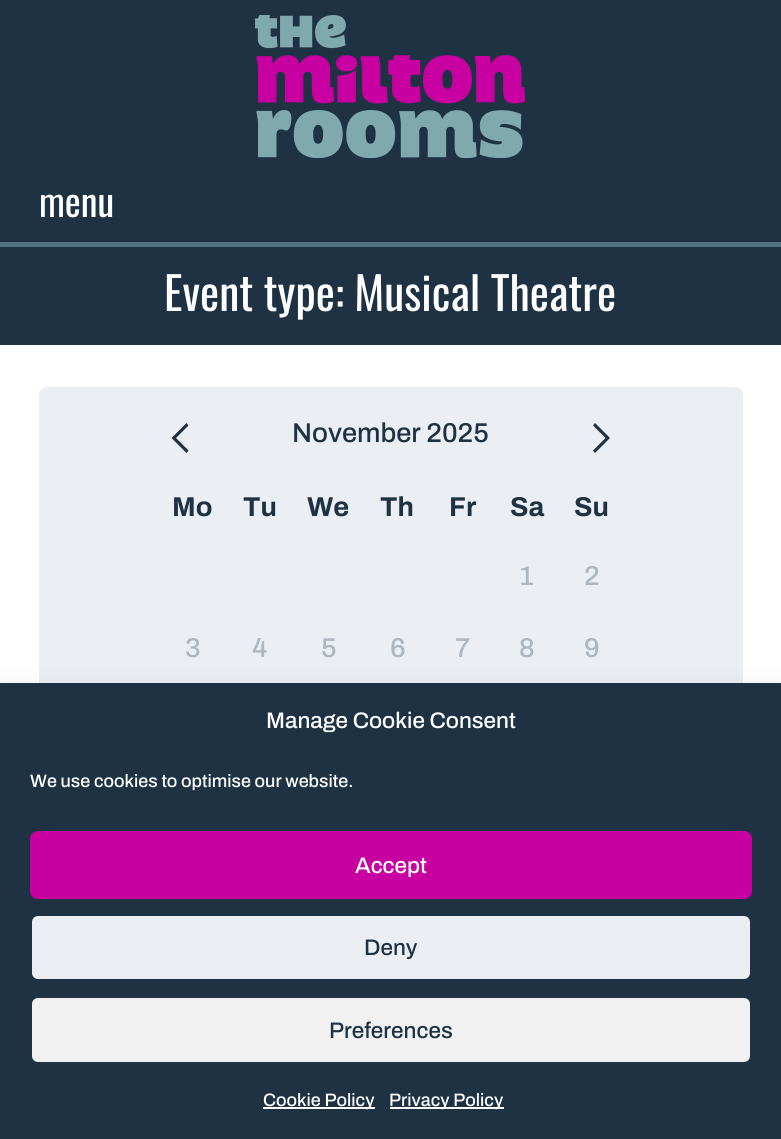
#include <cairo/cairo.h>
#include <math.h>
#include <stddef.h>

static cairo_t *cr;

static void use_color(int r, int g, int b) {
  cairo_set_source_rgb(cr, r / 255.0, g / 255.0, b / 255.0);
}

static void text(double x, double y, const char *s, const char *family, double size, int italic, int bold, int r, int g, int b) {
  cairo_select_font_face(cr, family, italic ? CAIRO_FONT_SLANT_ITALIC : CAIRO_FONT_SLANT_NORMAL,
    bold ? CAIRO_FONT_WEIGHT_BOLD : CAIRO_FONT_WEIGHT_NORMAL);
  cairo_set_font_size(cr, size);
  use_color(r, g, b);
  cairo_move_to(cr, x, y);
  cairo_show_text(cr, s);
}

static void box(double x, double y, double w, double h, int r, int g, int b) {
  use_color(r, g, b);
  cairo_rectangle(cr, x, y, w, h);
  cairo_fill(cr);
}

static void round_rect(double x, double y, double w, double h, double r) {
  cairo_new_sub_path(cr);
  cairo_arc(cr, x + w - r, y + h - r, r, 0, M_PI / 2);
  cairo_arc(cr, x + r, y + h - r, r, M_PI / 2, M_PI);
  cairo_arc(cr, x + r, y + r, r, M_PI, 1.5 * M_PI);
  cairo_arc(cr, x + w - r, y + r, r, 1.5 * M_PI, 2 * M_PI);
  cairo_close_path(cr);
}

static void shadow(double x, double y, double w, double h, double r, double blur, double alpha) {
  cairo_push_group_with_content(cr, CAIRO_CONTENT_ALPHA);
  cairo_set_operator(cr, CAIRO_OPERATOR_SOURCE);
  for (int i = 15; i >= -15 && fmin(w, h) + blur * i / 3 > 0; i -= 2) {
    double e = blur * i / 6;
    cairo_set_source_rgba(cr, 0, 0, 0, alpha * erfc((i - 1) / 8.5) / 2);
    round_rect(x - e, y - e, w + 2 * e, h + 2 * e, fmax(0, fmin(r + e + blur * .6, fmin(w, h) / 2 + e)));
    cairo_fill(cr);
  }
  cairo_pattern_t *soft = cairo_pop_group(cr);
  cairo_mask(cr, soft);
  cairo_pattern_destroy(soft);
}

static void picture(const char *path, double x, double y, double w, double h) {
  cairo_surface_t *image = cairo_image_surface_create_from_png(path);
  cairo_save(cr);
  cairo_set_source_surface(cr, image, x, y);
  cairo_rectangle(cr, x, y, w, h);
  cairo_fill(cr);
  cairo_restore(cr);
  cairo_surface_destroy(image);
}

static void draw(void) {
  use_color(255, 255, 255);
  cairo_paint(cr);
  box(0, 0, 781, 242, 30, 50, 67);
  picture("img_01.png", 255, 15, 270, 143);
  box(0, 247, 781, 98, 30, 50, 67);
  box(0, 242, 781, 5, 81, 113, 129);
  use_color(235, 239, 244);
  round_rect(39, 387, 704, 533, 8);
  cairo_fill(cr);
  use_color(30, 50, 67);
  cairo_new_path(cr);
  cairo_move_to(cr, 171.5, 438);
  cairo_line_to(cr, 186.5, 423);
  cairo_line_to(cr, 188.5, 425.5);
  cairo_line_to(cr, 176, 438);
  cairo_line_to(cr, 188.5, 450.5);
  cairo_line_to(cr, 186.5, 453);
  cairo_close_path(cr);
  cairo_fill(cr);
  cairo_new_path(cr);
  cairo_move_to(cr, 610, 438);
  cairo_line_to(cr, 595, 453);
  cairo_line_to(cr, 593, 450.5);
  cairo_line_to(cr, 605.5, 438);
  cairo_line_to(cr, 593, 425.5);
  cairo_line_to(cr, 595, 423);
  cairo_close_path(cr);
  cairo_fill(cr);
  use_color(0, 0, 0);
  shadow(0, 698, 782, 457, 0, 15, 0.19);
  box(0, 683, 781, 456, 30, 50, 67);
  use_color(200, 0, 161);
  round_rect(31, 832, 720, 66, 7);
  cairo_fill_preserve(cr);
  cairo_stroke(cr);
  use_color(235, 239, 244);
  round_rect(31, 915, 720, 65, 7);
  cairo_fill_preserve(cr);
  use_color(30, 50, 67);
  cairo_stroke(cr);
  use_color(241, 241, 241);
  round_rect(31, 997, 720, 66, 7);
  cairo_fill_preserve(cr);
  use_color(30, 50, 67);
  cairo_stroke(cr);
  box(263, 1107, 112, 2, 255, 255, 255);
  box(390, 1107, 114, 2, 255, 255, 255);
  text(39, 217, "menu", "Oswald", 38, 0, 0, 255, 255, 255);
  text(164, 311, "Event type: Musical Theatre", "Oswald", 45.5, 0, 0, 255, 255, 255);
  text(292, 442, "November 2025", "Archivo Medium", 27.25, 0, 0, 30, 50, 67);
  text(172, 516, "Mo", "Archivo", 27.25, 0, 1, 30, 50, 67);
  text(243, 516, "Tu", "Archivo", 27.25, 0, 1, 30, 50, 67);
  text(307, 516, "We", "Archivo", 27.25, 0, 1, 30, 50, 67);
  text(380, 516, "Th", "Archivo", 27.25, 0, 1, 30, 50, 67);
  text(449, 516, "Fr", "Archivo", 27.25, 0, 1, 30, 50, 67);
  text(510, 516, "Sa", "Archivo", 27.25, 0, 1, 30, 50, 67);
  text(574, 516, "Su", "Archivo", 27.25, 0, 1, 30, 50, 67);
  text(519, 585, "1", "Archivo Medium", 27.25, 0, 0, 174, 182, 191);
  text(584, 585, "2", "Archivo Medium", 27.25, 0, 0, 174, 182, 191);
  text(185, 657, "3", "Archivo Medium", 27.25, 0, 0, 174, 182, 191);
  text(252, 657, "4", "Archivo Medium", 27.25, 0, 0, 174, 182, 191);
  text(321, 657, "5", "Archivo Medium", 27.25, 0, 0, 174, 182, 191);
  text(390, 657, "6", "Archivo Medium", 27.25, 0, 0, 174, 182, 191);
  text(455, 657, "7", "Archivo Medium", 27.25, 0, 0, 174, 182, 191);
  text(519, 657, "8", "Archivo Medium", 27.25, 0, 0, 174, 182, 191);
  text(584, 657, "9", "Archivo Medium", 27.25, 0, 0, 174, 182, 191);
  text(266, 728, "Manage Cookie Consent", "Archivo Medium", 22.5, 0, 0, 255, 255, 255);
  text(30, 787, "We use cookies to optimise our website.", "Archivo Medium", 18, 0, 0, 255, 255, 255);
  text(355, 873, "Accept", "Archivo Medium", 22.5, 0, 0, 255, 255, 255);
  text(364, 955, "Deny", "Archivo Medium", 22.5, 0, 0, 30, 50, 67);
  text(329, 1038, "Preferences", "Archivo Medium", 22.5, 0, 0, 30, 50, 67);
  text(263, 1106, "Cookie Policy", "Archivo Medium", 18, 0, 0, 255, 255, 255);
  text(389, 1106, "Privacy Policy", "Archivo Medium", 18, 0, 0, 255, 255, 255);
}

int main(void) {
  cairo_surface_t *surface = cairo_image_surface_create(CAIRO_FORMAT_RGB24, 781, 1139);
  cr = cairo_create(surface);
  cairo_font_options_t *options = cairo_font_options_create();
  cairo_font_options_set_hint_metrics(options, CAIRO_HINT_METRICS_OFF);
  cairo_font_options_set_hint_style(options, CAIRO_HINT_STYLE_NONE);
  cairo_set_font_options(cr, options);
  cairo_set_miter_limit(cr, 4);
  draw();
  cairo_surface_write_to_png(surface, "out.png");
  cairo_font_options_destroy(options);
  cairo_destroy(cr);
  cairo_surface_destroy(surface);
  return 0;
}
